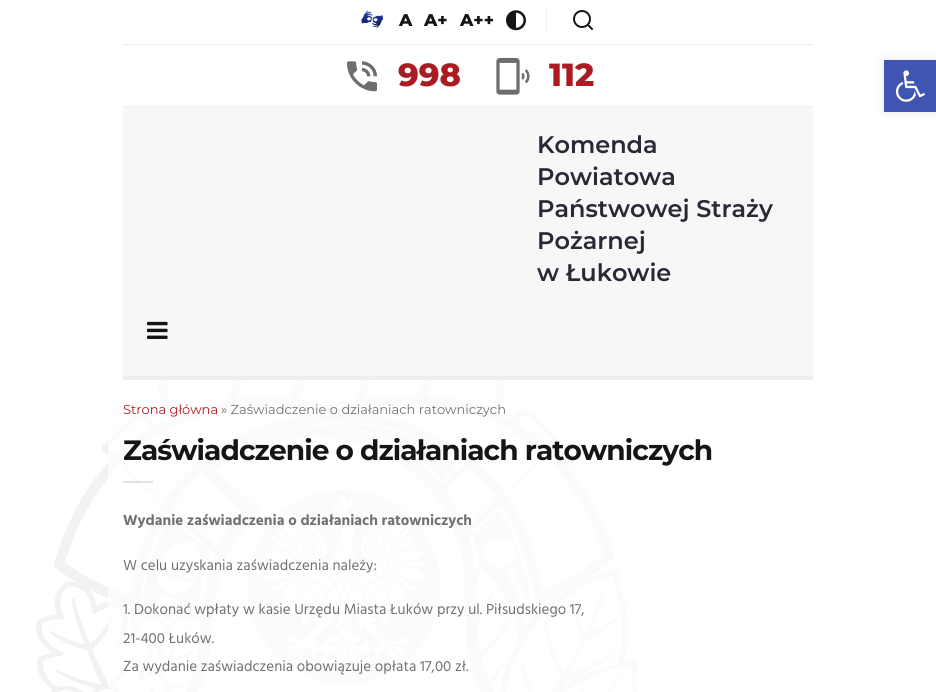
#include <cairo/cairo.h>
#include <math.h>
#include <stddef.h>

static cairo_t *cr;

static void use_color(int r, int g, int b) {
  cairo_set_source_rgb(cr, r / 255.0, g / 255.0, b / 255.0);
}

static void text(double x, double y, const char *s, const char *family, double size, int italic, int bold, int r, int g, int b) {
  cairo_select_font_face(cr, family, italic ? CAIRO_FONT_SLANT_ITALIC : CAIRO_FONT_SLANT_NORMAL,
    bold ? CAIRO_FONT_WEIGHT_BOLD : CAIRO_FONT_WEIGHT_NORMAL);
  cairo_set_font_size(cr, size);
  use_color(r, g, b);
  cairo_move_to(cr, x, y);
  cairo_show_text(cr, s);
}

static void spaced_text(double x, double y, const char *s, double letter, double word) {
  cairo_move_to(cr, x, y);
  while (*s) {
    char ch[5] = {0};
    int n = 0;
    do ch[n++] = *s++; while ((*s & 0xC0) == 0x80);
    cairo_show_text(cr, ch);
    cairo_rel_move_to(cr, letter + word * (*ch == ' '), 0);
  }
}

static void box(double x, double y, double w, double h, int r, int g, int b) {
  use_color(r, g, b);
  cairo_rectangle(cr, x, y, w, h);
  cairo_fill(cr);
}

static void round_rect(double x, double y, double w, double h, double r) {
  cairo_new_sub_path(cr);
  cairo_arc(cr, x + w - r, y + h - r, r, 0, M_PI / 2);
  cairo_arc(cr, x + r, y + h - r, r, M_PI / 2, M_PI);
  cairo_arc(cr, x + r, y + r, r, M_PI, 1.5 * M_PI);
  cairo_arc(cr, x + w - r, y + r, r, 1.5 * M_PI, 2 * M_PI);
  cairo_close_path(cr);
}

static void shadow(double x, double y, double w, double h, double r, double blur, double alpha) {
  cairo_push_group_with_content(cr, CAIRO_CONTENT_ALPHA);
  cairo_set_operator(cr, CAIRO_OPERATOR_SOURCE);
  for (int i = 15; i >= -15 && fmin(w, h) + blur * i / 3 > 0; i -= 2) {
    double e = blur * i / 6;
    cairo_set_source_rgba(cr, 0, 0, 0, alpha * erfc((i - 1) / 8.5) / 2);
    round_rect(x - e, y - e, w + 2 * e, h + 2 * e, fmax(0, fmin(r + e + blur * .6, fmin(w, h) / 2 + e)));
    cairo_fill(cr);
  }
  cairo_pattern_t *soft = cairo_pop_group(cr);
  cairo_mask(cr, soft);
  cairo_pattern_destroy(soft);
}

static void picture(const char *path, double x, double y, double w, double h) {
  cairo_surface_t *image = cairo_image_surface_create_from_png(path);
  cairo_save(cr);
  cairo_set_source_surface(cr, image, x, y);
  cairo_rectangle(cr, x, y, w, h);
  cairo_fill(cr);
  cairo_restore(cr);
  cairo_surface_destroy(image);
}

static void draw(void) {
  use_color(255, 255, 255);
  cairo_paint(cr);
  picture("img_01.png", 36, 380, 603, 312);
  box(123, 44, 690, 1, 238, 238, 238);
  picture("img_02.png", 361, 10, 23, 18);
  picture("img_03.png", 506, 10, 20, 21);
  box(546, 8, 1, 24, 238, 238, 238);
  picture("img_04.png", 573, 10, 20, 20);
  picture("img_05.png", 347, 61, 30, 31);
  picture("img_06.png", 496, 57, 34, 38);
  box(123, 106, 690, 1, 238, 238, 238);
  box(123, 107, 690, 269, 247, 247, 247);
  box(123, 376, 690, 4, 238, 238, 238);
  picture("img_07.png", 147, 321, 21, 18);
  use_color(0, 0, 0);
  shadow(884, 60, 52, 52, 0, 5, 0.1);
  box(884, 60, 52, 52, 64, 84, 178);
  picture("img_08.png", 895, 70, 30, 32);
  cairo_set_source_rgba(cr, 1, 1, 1, 0.7);
  cairo_rectangle(cr, 108, 380, 531, 312);
  cairo_fill(cr);
  box(123, 481, 30, 2, 225, 225, 225);
  text(399, 26, "A", "Montserrat ExtraBold", 17, 0, 0, 21, 21, 21);
  text(424, 26, "A+", "Montserrat ExtraBold", 17, 0, 0, 21, 21, 21);
  text(460, 26, "A++", "Montserrat ExtraBold", 17, 0, 0, 21, 21, 21);
  text(398, 86, "998", "Montserrat ExtraBold", 32, 0, 0, 171, 27, 36);
  text(549, 86, "112", "Montserrat ExtraBold", 32, 0, 0, 171, 27, 36);
  text(537, 153, "Komenda", "Montserrat SemiBold", 24, 0, 0, 41, 41, 53);
  text(537, 185, "Powiatowa", "Montserrat SemiBold", 24, 0, 0, 41, 41, 53);
  text(537, 217, "Państwowej Straży", "Montserrat SemiBold", 24, 0, 0, 41, 41, 53);
  text(537, 249, "Pożarnej", "Montserrat SemiBold", 24, 0, 0, 41, 41, 53);
  text(537, 281, "w Łukowie", "Montserrat SemiBold", 24, 0, 0, 41, 41, 53);
  text(123, 414, "Strona główna", "Montserrat", 13, 0, 0, 171, 27, 36);
  text(221, 414, "» Zaświadczenie o działaniach ratowniczych", "Montserrat", 13, 0, 0, 113, 113, 113);
  cairo_select_font_face(cr, "Montserrat", CAIRO_FONT_SLANT_NORMAL, CAIRO_FONT_WEIGHT_BOLD);
  cairo_set_font_size(cr, 28);
  use_color(21, 21, 21);
  spaced_text(123, 460, "Zaświadczenie o działaniach ratowniczych", -0.9, 0);
  text(123, 525, "Wydanie zaświadczenia o działaniach ratowniczych", "Hind", 15, 0, 1, 113, 113, 113);
  text(123, 570, "W celu uzyskania zaświadczenia należy:", "Hind", 15, 0, 0, 113, 113, 113);
  text(123, 614, "1. Dokonać wpłaty w kasie Urzędu Miasta Łuków przy ul. Piłsudskiego 17,", "Hind", 15, 0, 0, 113, 113, 113);
  text(123, 643, "21-400 Łuków.", "Hind", 15, 0, 0, 113, 113, 113);
  text(123, 671, "Za wydanie zaświadczenia obowiązuje opłata 17,00 zł.", "Hind", 15, 0, 0, 113, 113, 113);
}

int main(void) {
  cairo_surface_t *surface = cairo_image_surface_create(CAIRO_FORMAT_RGB24, 936, 692);
  cr = cairo_create(surface);
  cairo_font_options_t *options = cairo_font_options_create();
  cairo_font_options_set_hint_metrics(options, CAIRO_HINT_METRICS_OFF);
  cairo_font_options_set_hint_style(options, CAIRO_HINT_STYLE_NONE);
  cairo_set_font_options(cr, options);
  cairo_set_miter_limit(cr, 4);
  draw();
  cairo_surface_write_to_png(surface, "out.png");
  cairo_font_options_destroy(options);
  cairo_destroy(cr);
  cairo_surface_destroy(surface);
  return 0;
}
